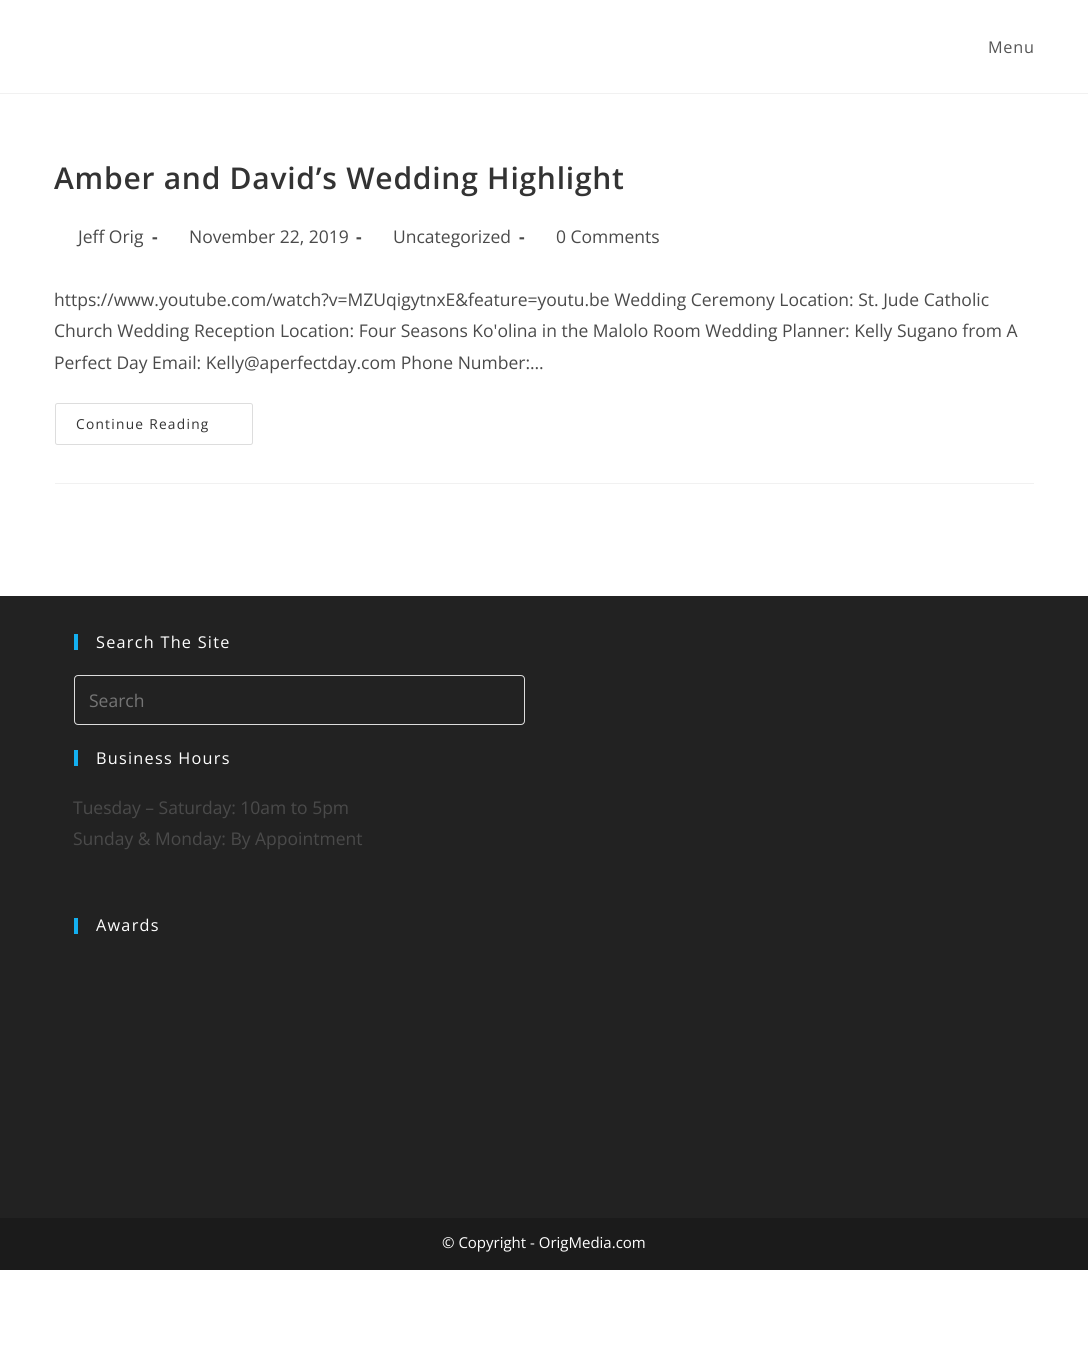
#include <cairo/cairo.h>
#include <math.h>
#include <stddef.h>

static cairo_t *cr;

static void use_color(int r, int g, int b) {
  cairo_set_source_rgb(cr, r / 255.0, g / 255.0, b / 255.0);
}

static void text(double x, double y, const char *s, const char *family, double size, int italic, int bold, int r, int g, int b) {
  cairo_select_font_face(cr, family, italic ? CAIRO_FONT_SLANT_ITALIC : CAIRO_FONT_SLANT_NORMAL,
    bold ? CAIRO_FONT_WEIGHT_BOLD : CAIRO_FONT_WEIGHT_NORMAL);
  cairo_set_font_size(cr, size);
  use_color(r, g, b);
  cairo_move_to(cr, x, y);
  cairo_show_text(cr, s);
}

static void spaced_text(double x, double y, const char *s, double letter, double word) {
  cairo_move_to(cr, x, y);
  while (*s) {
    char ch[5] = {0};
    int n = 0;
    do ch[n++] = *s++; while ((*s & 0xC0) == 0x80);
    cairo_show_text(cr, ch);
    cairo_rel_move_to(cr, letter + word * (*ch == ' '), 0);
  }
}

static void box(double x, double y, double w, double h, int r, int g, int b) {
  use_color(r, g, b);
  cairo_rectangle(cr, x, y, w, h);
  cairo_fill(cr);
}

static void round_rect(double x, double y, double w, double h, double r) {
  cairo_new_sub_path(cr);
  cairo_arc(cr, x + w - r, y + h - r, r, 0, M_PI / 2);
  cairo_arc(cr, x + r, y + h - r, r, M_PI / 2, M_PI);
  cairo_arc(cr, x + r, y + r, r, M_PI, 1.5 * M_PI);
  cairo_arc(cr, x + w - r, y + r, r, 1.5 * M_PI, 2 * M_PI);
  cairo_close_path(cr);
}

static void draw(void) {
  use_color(255, 255, 255);
  cairo_paint(cr);
  box(0, 93, 1088, 1, 241, 241, 241);
  box(55, 483, 979, 1, 241, 241, 241);
  round_rect(55.5, 403.5, 197, 41, 2);
  use_color(221, 221, 221);
  cairo_set_line_width(cr, 1);
  cairo_stroke(cr);
  box(0, 596, 1088, 622, 34, 34, 34);
  box(74, 634, 4, 16, 19, 175, 240);
  round_rect(74.5, 675.5, 450, 49, 3.5);
  use_color(221, 221, 221);
  cairo_stroke(cr);
  box(74, 750, 4, 16, 19, 175, 240);
  box(74, 918, 4, 16, 19, 175, 240);
  box(0, 1218, 1088, 52, 27, 27, 27);
  cairo_select_font_face(cr, "Open Sans", CAIRO_FONT_SLANT_NORMAL, CAIRO_FONT_WEIGHT_NORMAL);
  cairo_set_font_size(cr, 16.25);
  use_color(85, 85, 85);
  spaced_text(988, 53, "Menu", 0.75, 0);
  cairo_select_font_face(cr, "Open Sans SemiBold", CAIRO_FONT_SLANT_NORMAL, CAIRO_FONT_WEIGHT_NORMAL);
  cairo_set_font_size(cr, 30);
  use_color(51, 51, 51);
  spaced_text(54, 189, "Amber and David’s Wedding Highlight", 0.75, 0);
  text(78, 243, "Jeff Orig", "Open Sans", 17.5, 0, 0, 74, 74, 74);
  text(152, 243, "-", "Open Sans", 17.5, 0, 1, 74, 74, 74);
  text(189, 243, "November 22, 2019", "Open Sans", 17.5, 0, 0, 74, 74, 74);
  text(356, 243, "-", "Open Sans", 17.5, 0, 1, 74, 74, 74);
  text(393, 243, "Uncategorized", "Open Sans", 17.5, 0, 0, 74, 74, 74);
  text(519, 243, "-", "Open Sans", 17.5, 0, 1, 74, 74, 74);
  text(556, 243, "0 Comments", "Open Sans", 17.5, 0, 0, 74, 74, 74);
  text(54, 306, "https://www.youtube.com/watch?v=MZUqigytnxE&feature=youtu.be Wedding Ceremony Location: St. Jude Catholic", "Open Sans", 17.5, 0, 0, 74, 74, 74);
  text(54, 337, "Church Wedding Reception Location: Four Seasons Ko'olina in the Malolo Room Wedding Planner: Kelly Sugano from A", "Open Sans", 17.5, 0, 0, 74, 74, 74);
  text(54, 369, "Perfect Day Email: Kelly@aperfectday.com Phone Number:…", "Open Sans", 17.5, 0, 0, 74, 74, 74);
  cairo_set_font_size(cr, 13.75);
  use_color(51, 51, 51);
  spaced_text(76, 429, "Continue Reading", 1.25, 0);
  cairo_set_font_size(cr, 16.25);
  use_color(255, 255, 255);
  spaced_text(96, 648, "Search The Site", 1.25, 0);
  text(89, 707, "Search", "Open Sans", 17.5, 0, 0, 117, 117, 117);
  cairo_set_font_size(cr, 16.25);
  use_color(255, 255, 255);
  spaced_text(96, 764, "Business Hours", 1.25, 0);
  text(73, 814, "Tuesday – Saturday: 10am to 5pm", "Open Sans", 17.5, 0, 0, 74, 74, 74);
  text(73, 845, "Sunday & Monday: By Appointment", "Open Sans", 17.5, 0, 0, 74, 74, 74);
  cairo_set_font_size(cr, 16.25);
  use_color(255, 255, 255);
  spaced_text(96, 931, "Awards", 1.25, 0);
  text(442, 1248, "© Copyright - OrigMedia.com", "Open Sans", 15, 0, 0, 255, 255, 255);
}

int main(void) {
  cairo_surface_t *surface = cairo_image_surface_create(CAIRO_FORMAT_RGB24, 1088, 1357);
  cr = cairo_create(surface);
  cairo_font_options_t *options = cairo_font_options_create();
  cairo_font_options_set_hint_metrics(options, CAIRO_HINT_METRICS_OFF);
  cairo_font_options_set_hint_style(options, CAIRO_HINT_STYLE_NONE);
  cairo_set_font_options(cr, options);
  cairo_set_miter_limit(cr, 4);
  draw();
  cairo_surface_write_to_png(surface, "out.png");
  cairo_font_options_destroy(options);
  cairo_destroy(cr);
  cairo_surface_destroy(surface);
  return 0;
}
